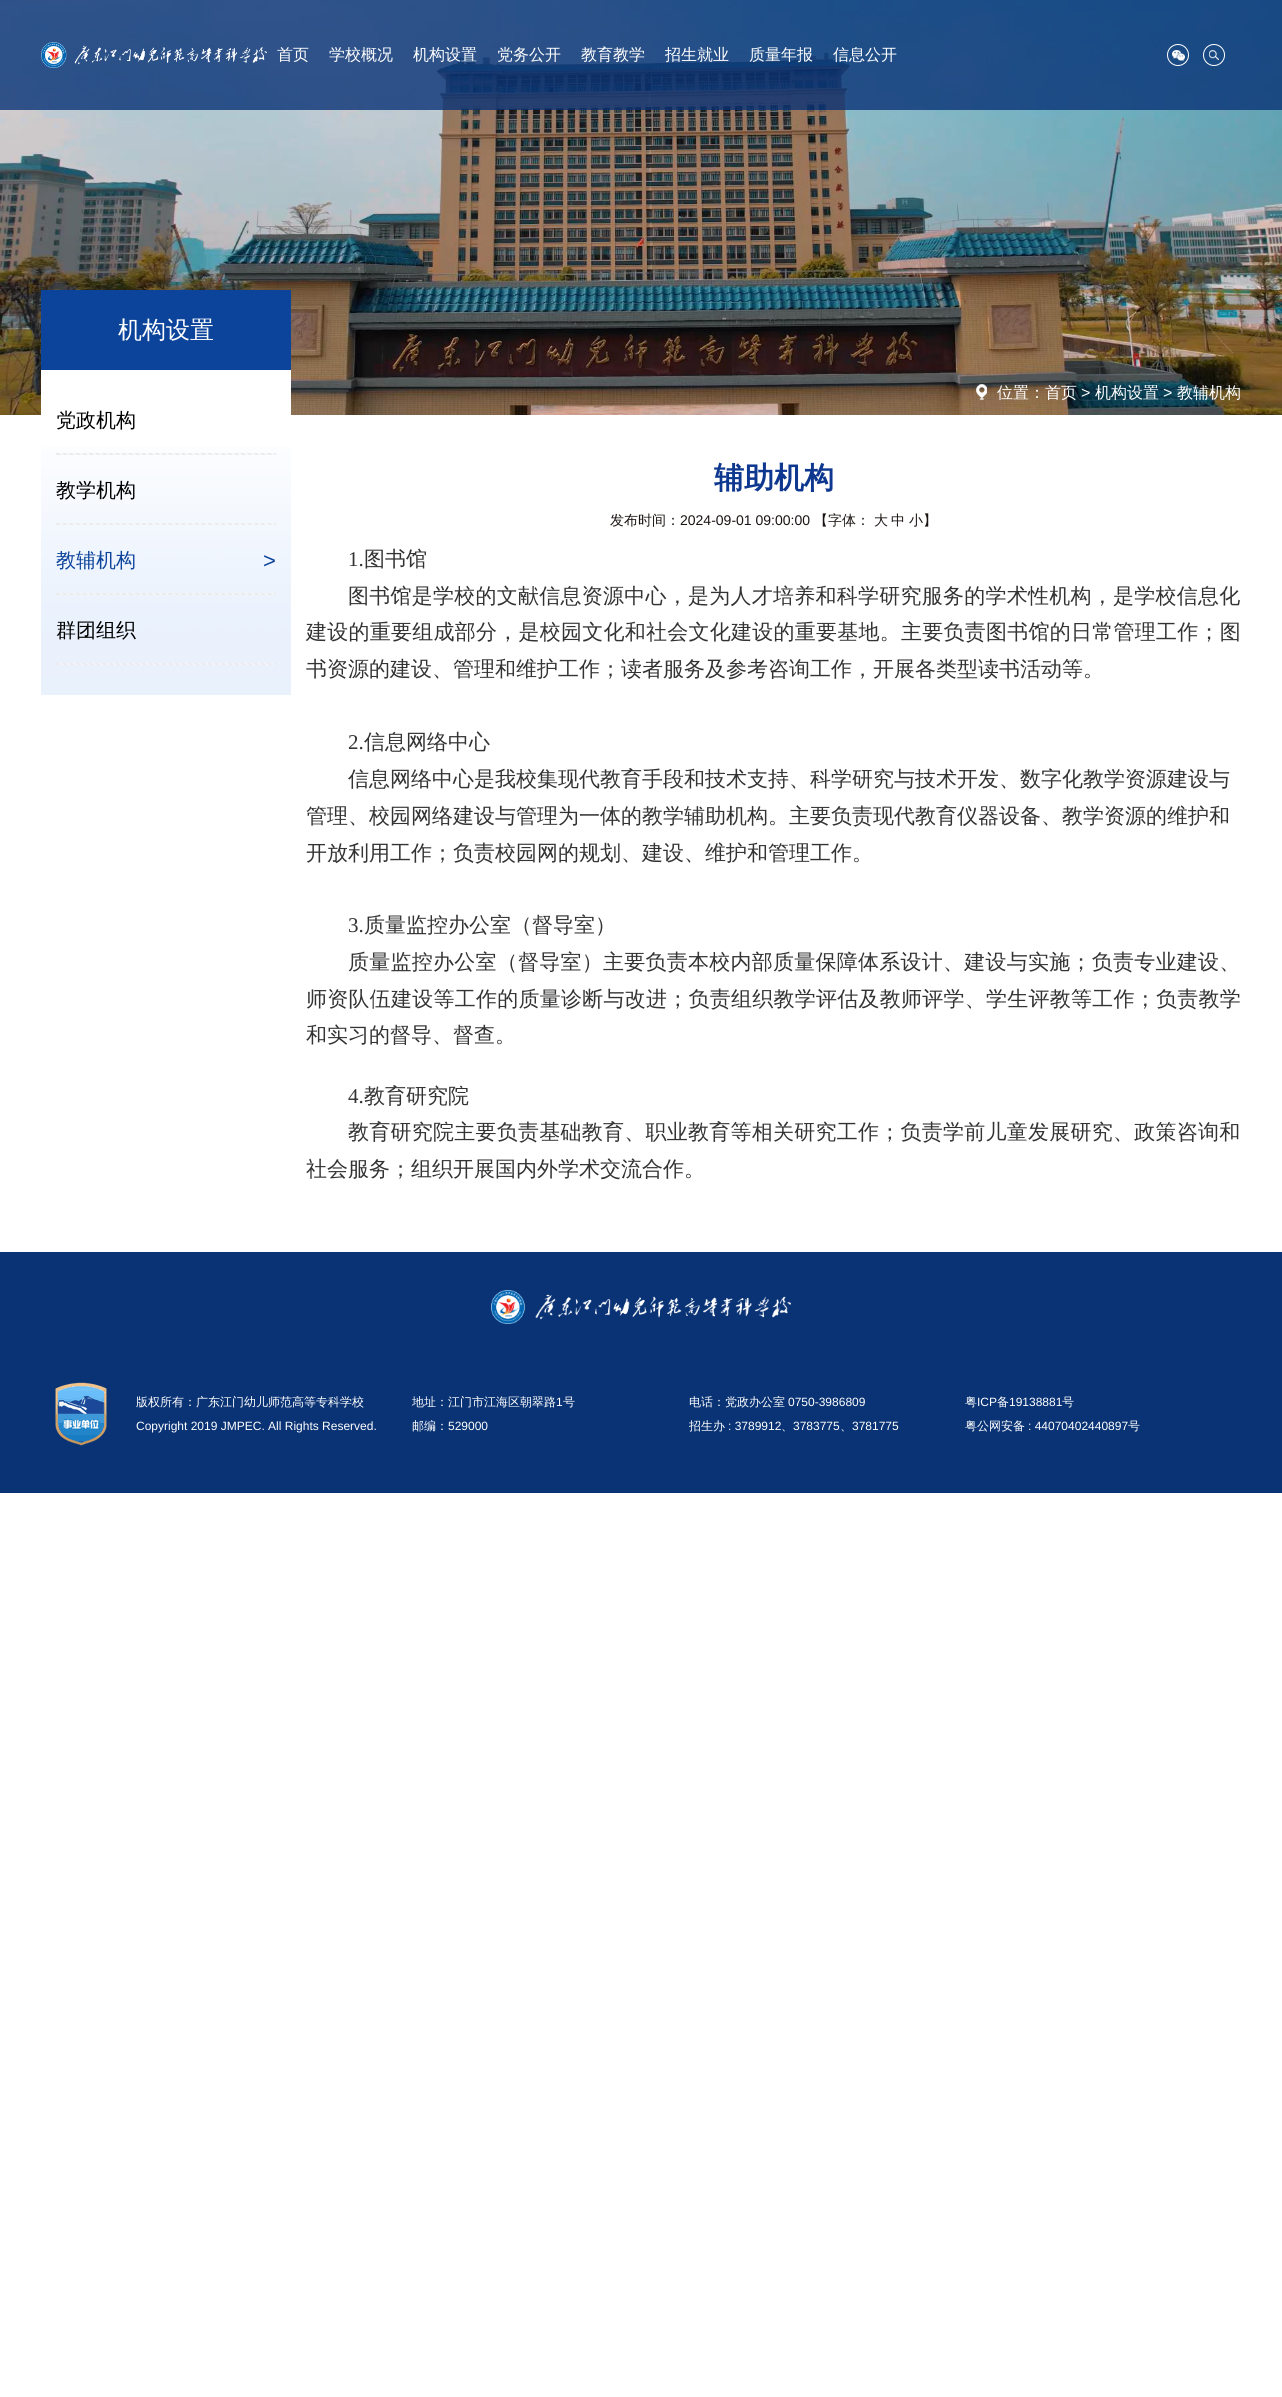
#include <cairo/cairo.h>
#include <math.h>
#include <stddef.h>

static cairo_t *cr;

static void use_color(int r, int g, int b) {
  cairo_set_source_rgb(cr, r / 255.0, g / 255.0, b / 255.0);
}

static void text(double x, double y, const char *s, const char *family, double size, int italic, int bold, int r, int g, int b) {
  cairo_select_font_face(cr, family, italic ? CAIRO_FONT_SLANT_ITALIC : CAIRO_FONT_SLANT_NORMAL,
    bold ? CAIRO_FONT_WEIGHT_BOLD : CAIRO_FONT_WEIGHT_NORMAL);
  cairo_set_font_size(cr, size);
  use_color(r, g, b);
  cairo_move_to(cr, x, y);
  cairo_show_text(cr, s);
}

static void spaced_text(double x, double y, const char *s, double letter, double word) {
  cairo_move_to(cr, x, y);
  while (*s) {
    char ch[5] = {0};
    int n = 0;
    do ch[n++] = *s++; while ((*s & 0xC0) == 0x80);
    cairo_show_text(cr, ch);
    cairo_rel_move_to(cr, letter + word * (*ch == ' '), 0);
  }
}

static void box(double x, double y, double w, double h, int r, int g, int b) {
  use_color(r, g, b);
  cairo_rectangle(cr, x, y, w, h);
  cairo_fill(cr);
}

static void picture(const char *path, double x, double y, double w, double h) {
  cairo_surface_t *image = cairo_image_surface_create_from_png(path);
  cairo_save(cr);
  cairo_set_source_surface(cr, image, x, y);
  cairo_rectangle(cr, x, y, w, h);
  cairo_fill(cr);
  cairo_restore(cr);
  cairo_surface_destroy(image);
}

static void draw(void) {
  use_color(255, 255, 255);
  cairo_paint(cr);
  picture("img_09.png", 0, 0, 1282, 415);
  cairo_set_source_rgba(cr, 0.039, 0.2, 0.459, 0.8);
  cairo_rectangle(cr, 0, 0, 1282, 110);
  cairo_fill(cr);
  picture("img_01.png", 41, 42, 226, 26);
  picture("img_02.png", 1167, 44, 22, 22);
  picture("img_03.png", 1203, 44, 22, 22);
  box(41, 370, 250, 45, 255, 255, 255);
  box(41, 290, 250, 80, 13, 68, 155);
  picture("img_04.png", 41, 447, 250, 248);
  picture("img_05.png", 56, 453, 220, 2);
  picture("img_06.png", 56, 523, 220, 2);
  picture("img_07.png", 56, 593, 220, 2);
  picture("img_08.png", 56, 663, 220, 2);
  picture("img_10.png", 976, 384, 11, 16);
  box(0, 1252, 1282, 241, 10, 51, 117);
  picture("img_11.png", 491, 1290, 300, 34);
  picture("img_12.png", 55, 1382, 52, 64);
  text(277, 60, "首页", "WenQuanYi Zen Hei Medium", 16, 0, 0, 255, 255, 255);
  text(329, 60, "学校概况", "WenQuanYi Zen Hei Medium", 16, 0, 0, 255, 255, 255);
  text(413, 60, "机构设置", "WenQuanYi Zen Hei Medium", 16, 0, 0, 255, 255, 255);
  text(497, 60, "党务公开", "WenQuanYi Zen Hei Medium", 16, 0, 0, 255, 255, 255);
  text(581, 60, "教育教学", "WenQuanYi Zen Hei Medium", 16, 0, 0, 255, 255, 255);
  text(665, 60, "招生就业", "WenQuanYi Zen Hei Medium", 16, 0, 0, 255, 255, 255);
  text(749, 60, "质量年报", "WenQuanYi Zen Hei Medium", 16, 0, 0, 255, 255, 255);
  text(833, 60, "信息公开", "WenQuanYi Zen Hei Medium", 16, 0, 0, 255, 255, 255);
  text(118, 338, "机构设置", "WenQuanYi Zen Hei Medium", 24, 0, 0, 255, 255, 255);
  text(56, 427, "党政机构", "WenQuanYi Zen Hei Medium", 20, 0, 0, 0, 0, 0);
  text(56, 497, "教学机构", "WenQuanYi Zen Hei Medium", 20, 0, 0, 0, 0, 0);
  text(56, 567, "教辅机构", "WenQuanYi Zen Hei Medium", 20, 0, 0, 14, 68, 156);
  text(263, 568, ">", "Liberation Sans", 22, 0, 0, 14, 68, 156);
  text(56, 637, "群团组织", "WenQuanYi Zen Hei Medium", 20, 0, 0, 0, 0, 0);
  text(714, 488, "辅助机构", "WenQuanYi Zen Hei", 30, 0, 1, 14, 55, 143);
  text(610, 525, "发布时间：", "WenQuanYi Zen Hei Medium", 14, 0, 0, 26, 19, 17);
  text(680, 525, "2024-09-01 09:00:00", "Liberation Sans", 14, 0, 0, 26, 19, 17);
  text(814, 525, "【字体：", "WenQuanYi Zen Hei Medium", 14, 0, 0, 26, 19, 17);
  text(874, 525, "大", "WenQuanYi Zen Hei Medium", 14, 0, 0, 26, 19, 17);
  text(891, 525, "中", "WenQuanYi Zen Hei Medium", 14, 0, 0, 26, 19, 17);
  text(909, 525, "小】", "WenQuanYi Zen Hei Medium", 14, 0, 0, 26, 19, 17);
  text(348, 566, "1.", "Liberation Serif", 21, 0, 0, 51, 51, 51);
  text(364, 566, "图书馆", "WenQuanYi Zen Hei Medium", 21, 0, 0, 51, 51, 51);
  spaced_text(348, 603, "图书馆是学校的文献信息资源中心，是为人才培养和科学研究服务的学术性机构，是学校信息化", 0.25, 0);
  spaced_text(306, 639, "建设的重要组成部分，是校园文化和社会文化建设的重要基地。主要负责图书馆的日常管理工作；图", 0.25, 0);
  text(306, 676, "书资源的建设、管理和维护工作；读者服务及参考咨询工作，开展各类型读书活动等。", "WenQuanYi Zen Hei Medium", 21, 0, 0, 51, 51, 51);
  text(348, 749, "2.", "Liberation Serif", 21, 0, 0, 51, 51, 51);
  text(364, 749, "信息网络中心", "WenQuanYi Zen Hei Medium", 21, 0, 0, 51, 51, 51);
  text(348, 786, "信息网络中心是我校集现代教育手段和技术支持、科学研究与技术开发、数字化教学资源建设与", "WenQuanYi Zen Hei Medium", 21, 0, 0, 51, 51, 51);
  text(306, 823, "管理、校园网络建设与管理为一体的教学辅助机构。主要负责现代教育仪器设备、教学资源的维护和", "WenQuanYi Zen Hei Medium", 21, 0, 0, 51, 51, 51);
  text(306, 860, "开放利用工作；负责校园网的规划、建设、维护和管理工作。", "WenQuanYi Zen Hei Medium", 21, 0, 0, 51, 51, 51);
  text(348, 932, "3.", "Liberation Serif", 21, 0, 0, 51, 51, 51);
  text(364, 932, "质量监控办公室（督导室）", "WenQuanYi Zen Hei Medium", 21, 0, 0, 51, 51, 51);
  spaced_text(348, 969, "质量监控办公室（督导室）主要负责本校内部质量保障体系设计、建设与实施；负责专业建设、", 0.25, 0);
  spaced_text(306, 1006, "师资队伍建设等工作的质量诊断与改进；负责组织教学评估及教师评学、学生评教等工作；负责教学", 0.25, 0);
  text(306, 1042, "和实习的督导、督查。", "WenQuanYi Zen Hei Medium", 21, 0, 0, 51, 51, 51);
  text(348, 1103, "4.", "Liberation Serif", 21, 0, 0, 51, 51, 51);
  text(364, 1103, "教育研究院", "WenQuanYi Zen Hei Medium", 21, 0, 0, 51, 51, 51);
  spaced_text(348, 1139, "教育研究院主要负责基础教育、职业教育等相关研究工作；负责学前儿童发展研究、政策咨询和", 0.25, 0);
  text(306, 1176, "社会服务；组织开展国内外学术交流合作。", "WenQuanYi Zen Hei Medium", 21, 0, 0, 51, 51, 51);
  text(997, 398, "位置：首页", "WenQuanYi Zen Hei Medium", 16, 0, 0, 255, 255, 255);
  text(1081, 398, ">", "Liberation Sans", 16, 0, 0, 255, 255, 255);
  text(1095, 398, "机构设置", "WenQuanYi Zen Hei Medium", 16, 0, 0, 255, 255, 255);
  text(1163, 398, ">", "Liberation Sans", 16, 0, 0, 255, 255, 255);
  text(1177, 398, "教辅机构", "WenQuanYi Zen Hei Medium", 16, 0, 0, 255, 255, 255);
  text(136, 1406, "版权所有：广东江门幼儿师范高等专科学校", "WenQuanYi Zen Hei Medium", 12, 0, 0, 255, 255, 255);
  text(412, 1406, "地址：江门市江海区朝翠路", "WenQuanYi Zen Hei Medium", 12, 0, 0, 255, 255, 255);
  text(556, 1406, "1", "Liberation Sans", 12, 0, 0, 255, 255, 255);
  text(563, 1406, "号", "WenQuanYi Zen Hei Medium", 12, 0, 0, 255, 255, 255);
  text(689, 1406, "电话：党政办公室", "WenQuanYi Zen Hei Medium", 12, 0, 0, 255, 255, 255);
  text(788, 1406, "0750-3986809", "Liberation Sans", 12, 0, 0, 255, 255, 255);
  text(965, 1406, "粤", "WenQuanYi Zen Hei Medium", 12, 0, 0, 255, 255, 255);
  text(977, 1406, "ICP", "Liberation Sans", 12, 0, 0, 255, 255, 255);
  text(997, 1406, "备", "WenQuanYi Zen Hei Medium", 12, 0, 0, 255, 255, 255);
  text(1009, 1406, "19138881", "Liberation Sans", 12, 0, 0, 255, 255, 255);
  text(1062, 1406, "号", "WenQuanYi Zen Hei Medium", 12, 0, 0, 255, 255, 255);
  text(136, 1430, "Copyright 2019 JMPEC. All Rights Reserved.", "Liberation Sans", 12, 0, 0, 255, 255, 255);
  text(412, 1430, "邮编：", "WenQuanYi Zen Hei Medium", 12, 0, 0, 255, 255, 255);
  text(448, 1430, "529000", "Liberation Sans", 12, 0, 0, 255, 255, 255);
  text(689, 1430, "招生办", "WenQuanYi Zen Hei Medium", 12, 0, 0, 255, 255, 255);
  text(728, 1430, ": 3789912", "Liberation Sans", 12, 0, 0, 255, 255, 255);
  text(781, 1430, "、", "WenQuanYi Zen Hei Medium", 12, 0, 0, 255, 255, 255);
  text(793, 1430, "3783775", "Liberation Sans", 12, 0, 0, 255, 255, 255);
  text(840, 1430, "、", "WenQuanYi Zen Hei Medium", 12, 0, 0, 255, 255, 255);
  text(852, 1430, "3781775", "Liberation Sans", 12, 0, 0, 255, 255, 255);
  text(965, 1430, "粤公网安备", "WenQuanYi Zen Hei Medium", 12, 0, 0, 255, 255, 255);
  text(1028, 1430, ": 44070402440897", "Liberation Sans", 12, 0, 0, 255, 255, 255);
  text(1128, 1430, "号", "WenQuanYi Zen Hei Medium", 12, 0, 0, 255, 255, 255);
}

int main(void) {
  cairo_surface_t *surface = cairo_image_surface_create(CAIRO_FORMAT_RGB24, 1282, 2397);
  cr = cairo_create(surface);
  cairo_font_options_t *options = cairo_font_options_create();
  cairo_font_options_set_hint_metrics(options, CAIRO_HINT_METRICS_OFF);
  cairo_font_options_set_hint_style(options, CAIRO_HINT_STYLE_NONE);
  cairo_set_font_options(cr, options);
  cairo_set_miter_limit(cr, 4);
  draw();
  cairo_surface_write_to_png(surface, "out.png");
  cairo_font_options_destroy(options);
  cairo_destroy(cr);
  cairo_surface_destroy(surface);
  return 0;
}
